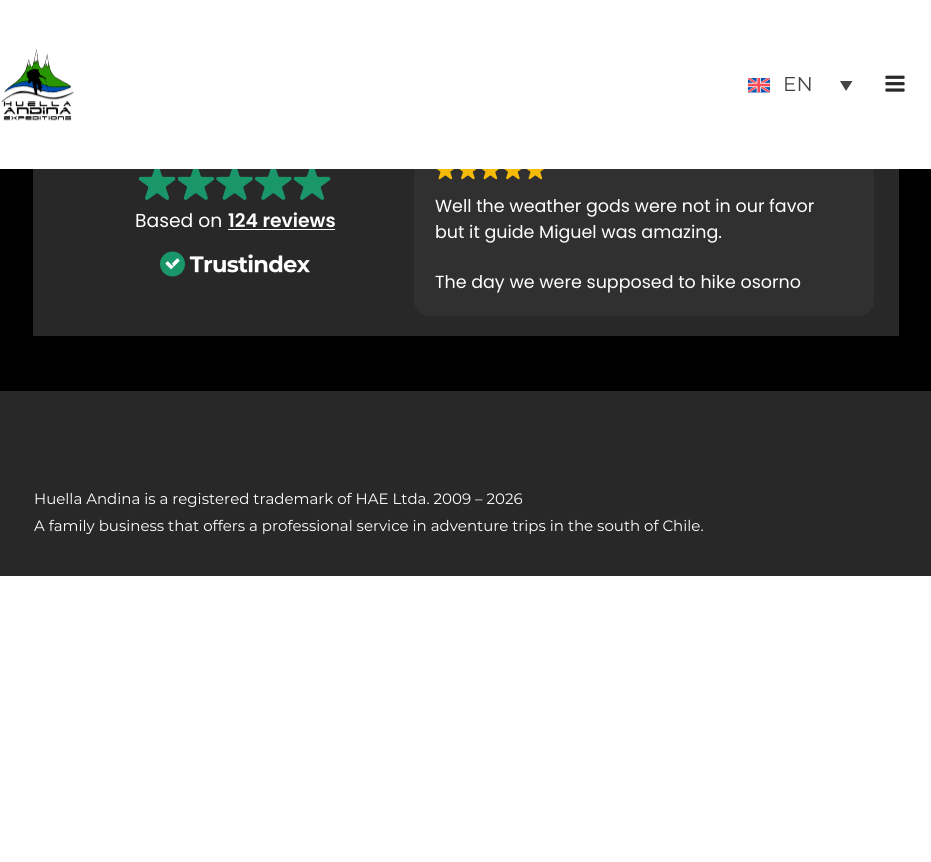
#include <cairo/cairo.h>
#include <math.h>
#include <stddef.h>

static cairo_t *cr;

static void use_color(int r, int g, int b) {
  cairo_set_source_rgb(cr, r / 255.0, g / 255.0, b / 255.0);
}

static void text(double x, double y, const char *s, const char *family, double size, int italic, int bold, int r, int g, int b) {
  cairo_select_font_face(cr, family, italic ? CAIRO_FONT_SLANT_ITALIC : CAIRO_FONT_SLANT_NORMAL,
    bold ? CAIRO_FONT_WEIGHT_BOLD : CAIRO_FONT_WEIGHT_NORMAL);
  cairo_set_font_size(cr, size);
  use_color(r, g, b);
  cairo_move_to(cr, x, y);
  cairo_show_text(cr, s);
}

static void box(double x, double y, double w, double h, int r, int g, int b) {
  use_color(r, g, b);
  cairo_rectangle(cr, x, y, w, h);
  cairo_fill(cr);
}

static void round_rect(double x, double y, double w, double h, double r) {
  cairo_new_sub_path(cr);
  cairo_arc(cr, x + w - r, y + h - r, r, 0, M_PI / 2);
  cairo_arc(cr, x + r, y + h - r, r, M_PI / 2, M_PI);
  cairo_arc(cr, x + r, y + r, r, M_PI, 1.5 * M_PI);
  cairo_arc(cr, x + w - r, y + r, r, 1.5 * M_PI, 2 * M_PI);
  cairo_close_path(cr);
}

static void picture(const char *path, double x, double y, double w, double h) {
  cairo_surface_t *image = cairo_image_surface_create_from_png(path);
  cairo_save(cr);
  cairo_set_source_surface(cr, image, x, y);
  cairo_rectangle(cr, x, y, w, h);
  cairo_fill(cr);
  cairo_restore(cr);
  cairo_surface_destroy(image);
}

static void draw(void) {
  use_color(255, 255, 255);
  cairo_paint(cr);
  box(0, 169, 931, 222, 0, 0, 0);
  box(33, 169, 866, 167, 40, 40, 40);
  use_color(48, 48, 48);
  round_rect(415.5, 75.5, 457, 239, 13.5);
  cairo_fill_preserve(cr);
  cairo_set_line_width(cr, 3);
  cairo_stroke(cr);
  box(414, 74, 460, 95, 255, 255, 255);
  picture("img_01.png", 1, 49, 73, 72);
  picture("img_02.png", 748, 78, 22, 15);
  use_color(68, 68, 68);
  cairo_new_path(cr);
  cairo_move_to(cr, 840, 81);
  cairo_line_to(cr, 852.5, 81);
  cairo_line_to(cr, 846, 91);
  cairo_close_path(cr);
  cairo_fill(cr);
  picture("img_03.png", 885, 75, 20, 17);
  picture("img_04.png", 139, 169, 37, 31);
  picture("img_05.png", 178, 169, 37, 31);
  picture("img_06.png", 216, 169, 37, 31);
  picture("img_07.png", 255, 169, 37, 31);
  picture("img_04.png", 294, 169, 37, 31);
  box(228, 229, 107, 1, 255, 255, 255);
  picture("img_08.png", 160, 251, 150, 26);
  picture("img_09.png", 436, 169, 18, 11);
  picture("img_10.png", 459, 169, 18, 11);
  picture("img_09.png", 481, 169, 18, 11);
  picture("img_10.png", 504, 169, 18, 11);
  picture("img_09.png", 526, 169, 18, 11);
  box(0, 391, 931, 185, 40, 40, 40);
  text(783, 91, "EN", "Montserrat", 20, 0, 0, 68, 68, 68);
  text(135, 227, "Based on", "Poppins", 18.75, 0, 0, 255, 255, 255);
  text(228, 227, "124 reviews", "Poppins SemiBold", 18.75, 0, 0, 255, 255, 255);
  text(435, 212, "Well the weather gods were not in our favor", "Poppins", 17.5, 0, 0, 255, 255, 255);
  text(435, 238, "but it guide Miguel was amazing.", "Poppins", 17.5, 0, 0, 255, 255, 255);
  text(435, 288, "The day we were supposed to hike osorno", "Poppins", 17.5, 0, 0, 255, 255, 255);
  text(34, 504, "Huella Andina is a registered trademark of HAE Ltda. 2009 – 2026", "Montserrat", 15, 0, 0, 255, 255, 255);
  text(34, 531, "A family business that offers a professional service in adventure trips in the south of Chile.", "Montserrat", 15, 0, 0, 255, 255, 255);
}

int main(void) {
  cairo_surface_t *surface = cairo_image_surface_create(CAIRO_FORMAT_RGB24, 931, 862);
  cr = cairo_create(surface);
  cairo_font_options_t *options = cairo_font_options_create();
  cairo_font_options_set_hint_metrics(options, CAIRO_HINT_METRICS_OFF);
  cairo_font_options_set_hint_style(options, CAIRO_HINT_STYLE_NONE);
  cairo_set_font_options(cr, options);
  cairo_set_miter_limit(cr, 4);
  draw();
  cairo_surface_write_to_png(surface, "out.png");
  cairo_font_options_destroy(options);
  cairo_destroy(cr);
  cairo_surface_destroy(surface);
  return 0;
}
